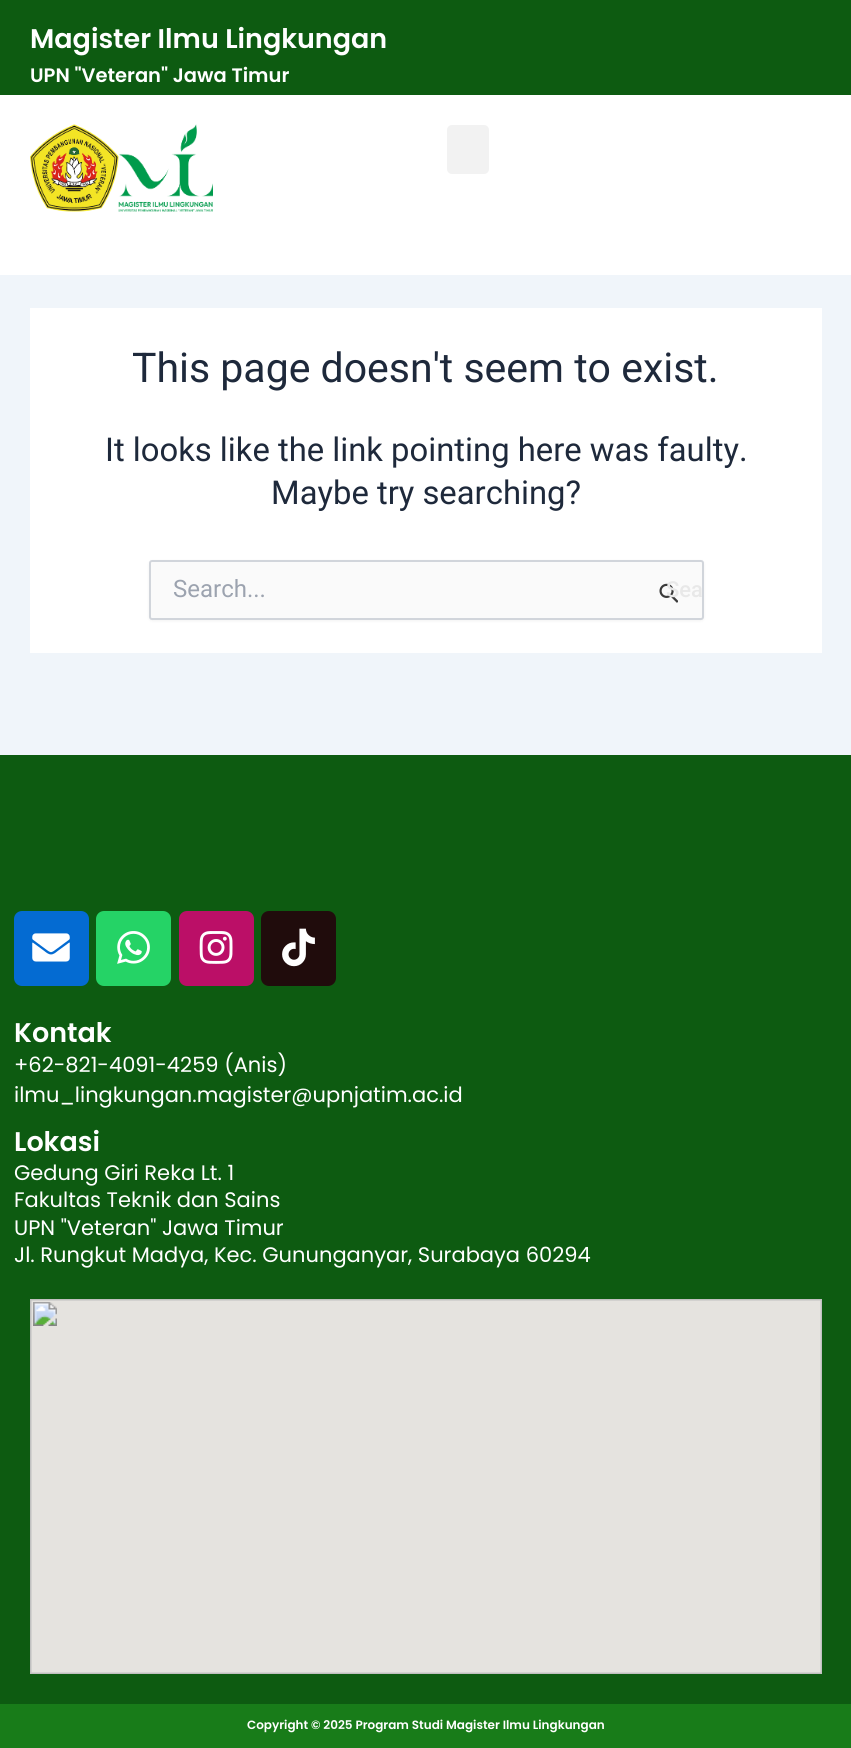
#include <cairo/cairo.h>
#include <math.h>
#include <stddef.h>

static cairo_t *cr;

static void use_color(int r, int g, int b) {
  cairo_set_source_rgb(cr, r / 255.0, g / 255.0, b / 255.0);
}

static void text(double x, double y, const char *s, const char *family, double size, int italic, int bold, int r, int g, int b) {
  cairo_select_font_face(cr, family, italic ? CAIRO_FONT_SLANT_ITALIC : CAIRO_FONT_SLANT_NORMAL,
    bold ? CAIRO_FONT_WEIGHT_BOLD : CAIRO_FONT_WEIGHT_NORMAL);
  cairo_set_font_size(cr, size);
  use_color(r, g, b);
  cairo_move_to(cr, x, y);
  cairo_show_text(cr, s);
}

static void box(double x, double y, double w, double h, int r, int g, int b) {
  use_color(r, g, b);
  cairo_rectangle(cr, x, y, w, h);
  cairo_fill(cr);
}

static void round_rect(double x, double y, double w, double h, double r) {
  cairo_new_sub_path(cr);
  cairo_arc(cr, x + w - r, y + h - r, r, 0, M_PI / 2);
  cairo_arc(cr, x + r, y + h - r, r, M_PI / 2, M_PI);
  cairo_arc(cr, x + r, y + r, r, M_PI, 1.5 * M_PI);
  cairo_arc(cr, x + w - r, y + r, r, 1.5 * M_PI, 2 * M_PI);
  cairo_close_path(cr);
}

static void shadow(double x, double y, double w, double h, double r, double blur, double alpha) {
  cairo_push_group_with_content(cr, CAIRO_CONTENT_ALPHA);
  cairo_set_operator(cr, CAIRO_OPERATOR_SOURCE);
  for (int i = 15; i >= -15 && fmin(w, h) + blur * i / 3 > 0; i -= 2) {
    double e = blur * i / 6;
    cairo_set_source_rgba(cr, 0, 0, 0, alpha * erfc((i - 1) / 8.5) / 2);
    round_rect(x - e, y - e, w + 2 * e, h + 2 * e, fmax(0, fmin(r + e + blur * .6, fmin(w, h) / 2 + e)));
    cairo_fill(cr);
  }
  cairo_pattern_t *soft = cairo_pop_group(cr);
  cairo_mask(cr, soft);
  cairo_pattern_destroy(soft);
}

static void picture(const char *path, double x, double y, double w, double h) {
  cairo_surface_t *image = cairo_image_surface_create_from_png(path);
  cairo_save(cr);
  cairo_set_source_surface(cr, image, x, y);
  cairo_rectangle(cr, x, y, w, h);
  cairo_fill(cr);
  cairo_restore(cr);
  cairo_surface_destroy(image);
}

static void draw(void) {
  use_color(240, 245, 250);
  cairo_paint(cr);
  box(0, 0, 851, 95, 13, 91, 17);
  box(0, 95, 851, 180, 255, 255, 255);
  picture("img_01.png", 30, 124, 89, 88);
  picture("img_02.png", 118, 124, 95, 88);
  use_color(242, 242, 242);
  round_rect(447, 125, 42, 49, 5);
  cairo_fill(cr);
  box(30, 308, 792, 345, 255, 255, 255);
  use_color(0, 0, 0);
  shadow(149, 561, 555, 60, 3, 1.5, 0.05);
  use_color(250, 250, 250);
  round_rect(150, 561, 553, 58, 2);
  cairo_fill_preserve(cr);
  use_color(209, 213, 219);
  cairo_stroke(cr);
  picture("img_03.png", 659, 583, 19, 20);
  box(0, 755, 851, 949, 13, 91, 17);
  use_color(4, 107, 210);
  round_rect(14, 911, 75, 75, 8);
  cairo_fill(cr);
  picture("img_04.png", 32, 933, 38, 29);
  use_color(37, 211, 102);
  round_rect(96, 911, 75, 75, 8);
  cairo_fill(cr);
  picture("img_05.png", 117, 931, 33, 33);
  use_color(187, 15, 103);
  round_rect(179, 911, 75, 75, 8);
  cairo_fill(cr);
  picture("img_06.png", 199, 931, 34, 33);
  use_color(32, 12, 12);
  round_rect(261, 911, 75, 75, 8);
  cairo_fill(cr);
  picture("img_07.png", 282, 928, 33, 39);
  picture("img_08.png", 30, 1299, 792, 375);
  box(0, 1704, 851, 44, 24, 124, 25);
  text(30, 48, "Magister Ilmu Lingkungan", "Poppins SemiBold", 27, 0, 0, 255, 255, 255);
  text(30, 82, "UPN \"Veteran\" Jawa Timur", "Poppins SemiBold", 19.5, 0, 0, 255, 255, 255);
  text(132, 382, "This page doesn't seem to exist.", "Roboto", 41, 0, 0, 30, 41, 59);
  text(105, 461, "It looks like the link pointing here was faulty.", "Roboto", 32.8, 0, 0, 30, 41, 59);
  text(271, 504, "Maybe try searching?", "Roboto", 32.8, 0, 0, 30, 41, 59);
  text(173, 597, "Search...", "Roboto", 24, 0, 0, 156, 163, 175);
  text(666, 597, "Sea", "Roboto Medium", 22, 0, 0, 232, 232, 232);
  text(14, 1042, "Kontak", "Poppins SemiBold", 27, 0, 0, 255, 255, 255);
  text(14, 1072, "+62-821-4091-4259 (Anis)", "Poppins", 21, 0, 0, 255, 255, 255);
  text(14, 1102, "ilmu_lingkungan.magister@upnjatim.ac.id", "Poppins", 21, 0, 0, 255, 255, 255);
  text(14, 1151, "Lokasi", "Poppins SemiBold", 27, 0, 0, 255, 255, 255);
  text(14, 1180, "Gedung Giri Reka Lt. 1", "Poppins", 21, 0, 0, 255, 255, 255);
  text(14, 1207, "Fakultas Teknik dan Sains", "Poppins", 21, 0, 0, 255, 255, 255);
  text(14, 1235, "UPN \"Veteran\" Jawa Timur", "Poppins", 21, 0, 0, 255, 255, 255);
  text(14, 1262, "Jl. Rungkut Madya, Kec. Gununganyar, Surabaya 60294", "Poppins", 21, 0, 0, 255, 255, 255);
  text(247, 1729, "Copyright © 2025 Program Studi Magister Ilmu Lingkungan", "Poppins SemiBold", 12, 0, 0, 255, 255, 255);
}

int main(void) {
  cairo_surface_t *surface = cairo_image_surface_create(CAIRO_FORMAT_RGB24, 851, 1748);
  cr = cairo_create(surface);
  cairo_font_options_t *options = cairo_font_options_create();
  cairo_font_options_set_hint_metrics(options, CAIRO_HINT_METRICS_OFF);
  cairo_font_options_set_hint_style(options, CAIRO_HINT_STYLE_NONE);
  cairo_set_font_options(cr, options);
  cairo_set_miter_limit(cr, 4);
  draw();
  cairo_surface_write_to_png(surface, "out.png");
  cairo_font_options_destroy(options);
  cairo_destroy(cr);
  cairo_surface_destroy(surface);
  return 0;
}
